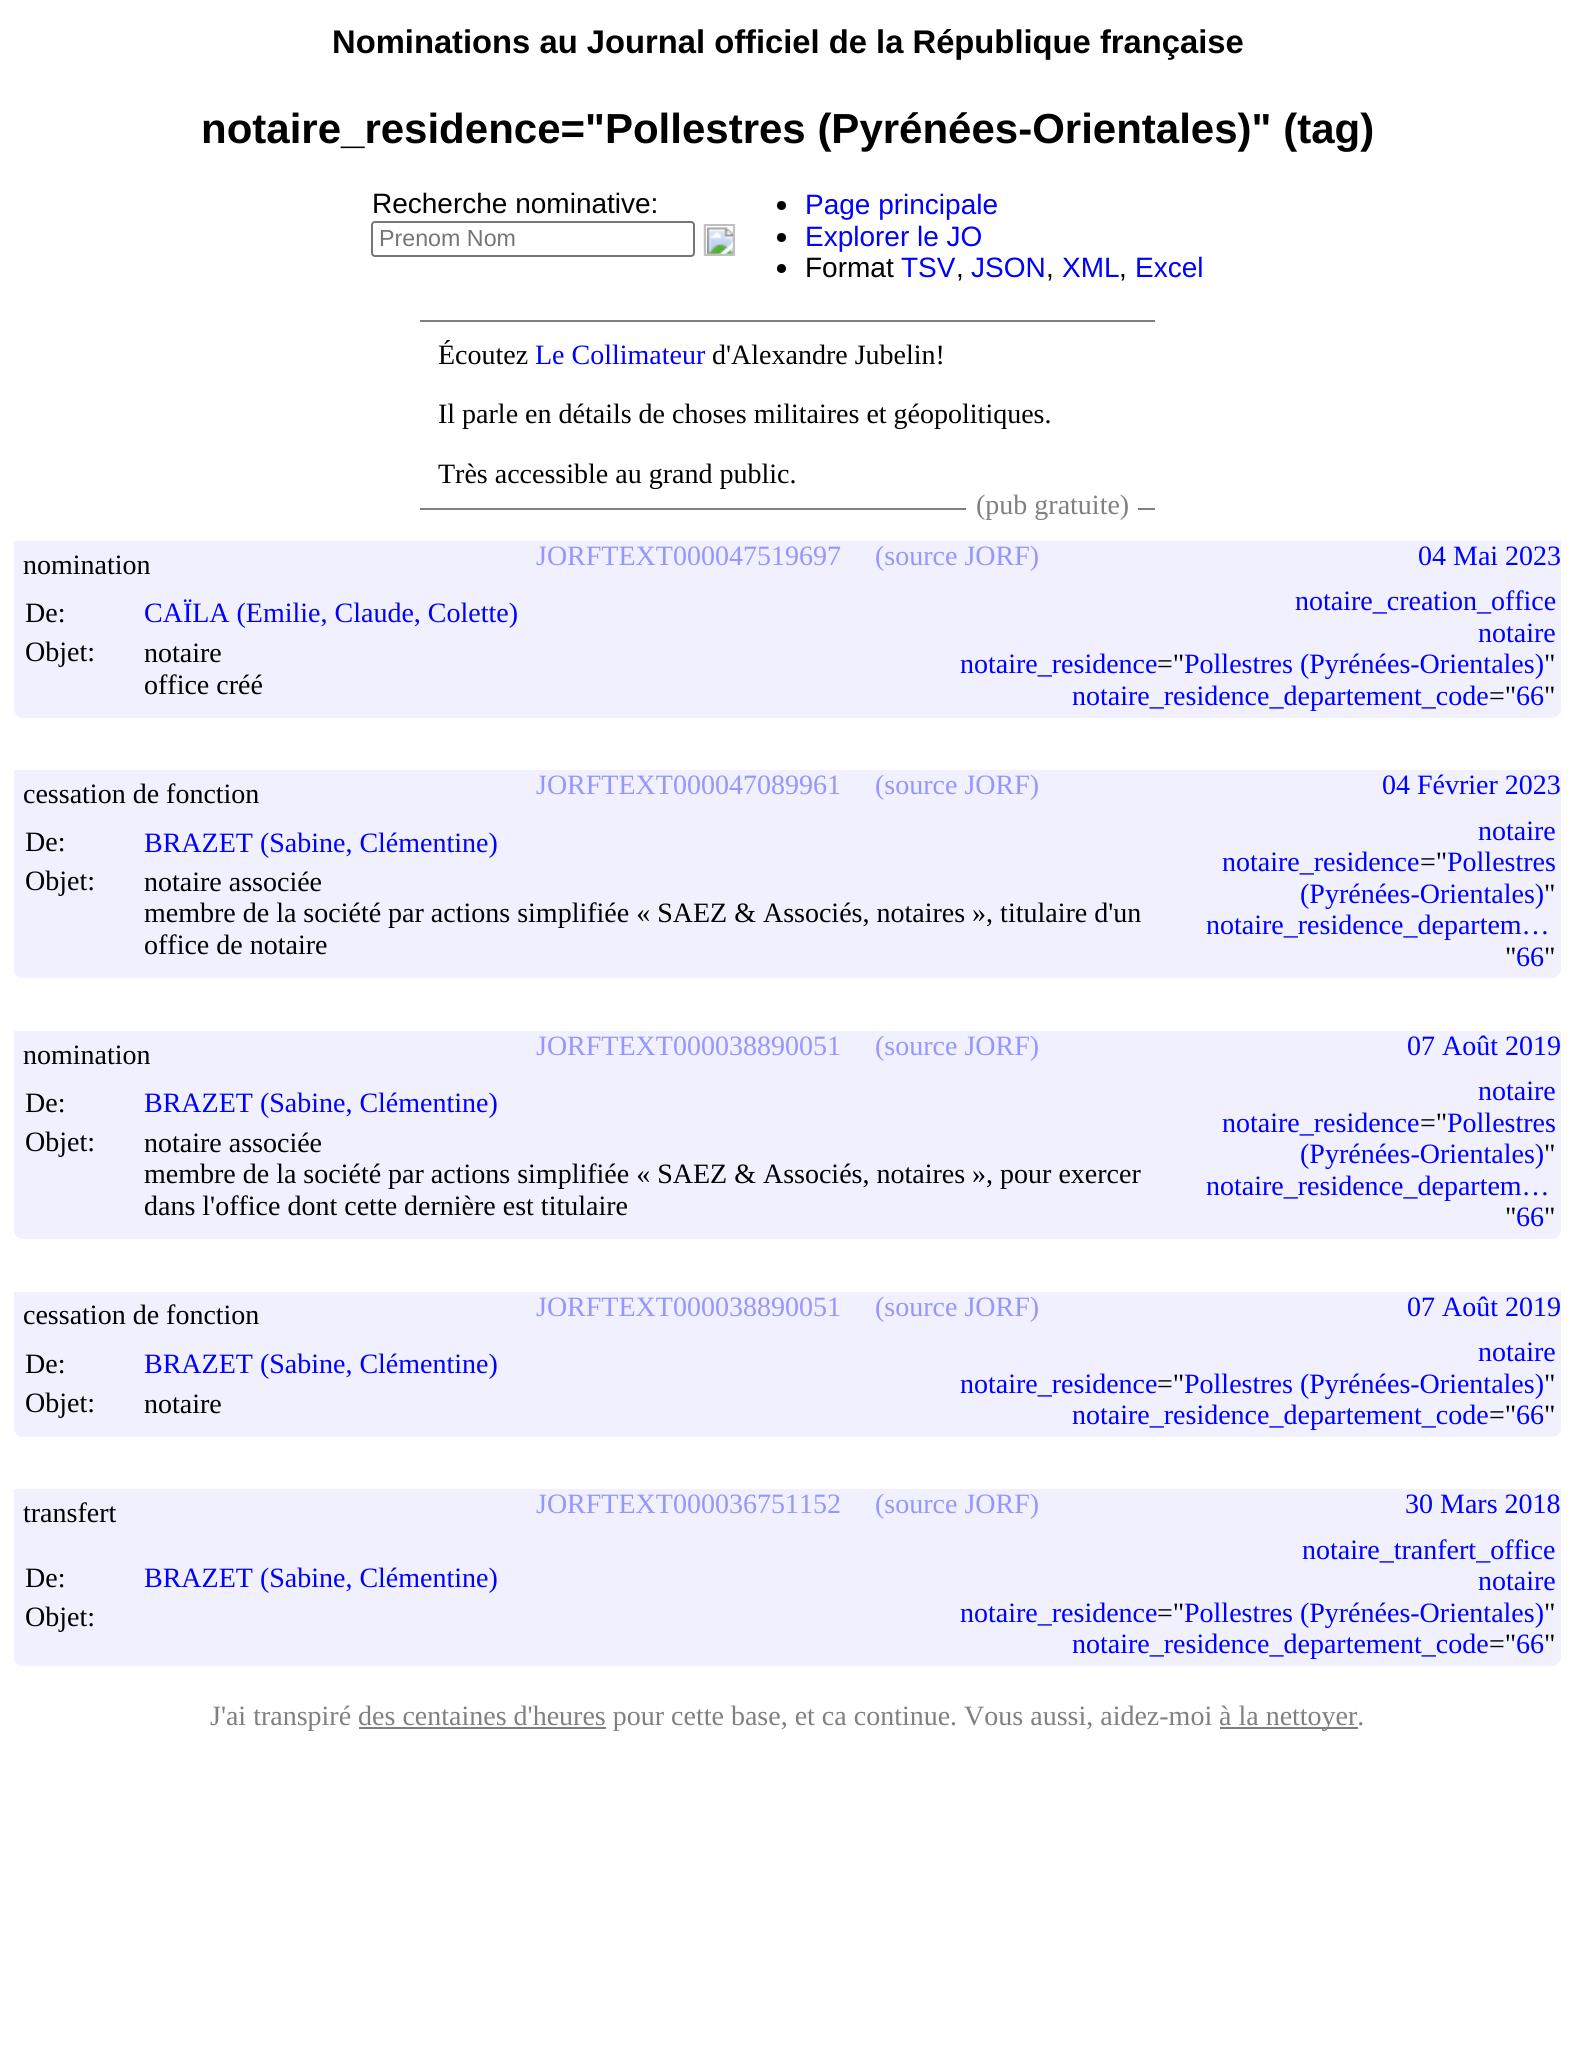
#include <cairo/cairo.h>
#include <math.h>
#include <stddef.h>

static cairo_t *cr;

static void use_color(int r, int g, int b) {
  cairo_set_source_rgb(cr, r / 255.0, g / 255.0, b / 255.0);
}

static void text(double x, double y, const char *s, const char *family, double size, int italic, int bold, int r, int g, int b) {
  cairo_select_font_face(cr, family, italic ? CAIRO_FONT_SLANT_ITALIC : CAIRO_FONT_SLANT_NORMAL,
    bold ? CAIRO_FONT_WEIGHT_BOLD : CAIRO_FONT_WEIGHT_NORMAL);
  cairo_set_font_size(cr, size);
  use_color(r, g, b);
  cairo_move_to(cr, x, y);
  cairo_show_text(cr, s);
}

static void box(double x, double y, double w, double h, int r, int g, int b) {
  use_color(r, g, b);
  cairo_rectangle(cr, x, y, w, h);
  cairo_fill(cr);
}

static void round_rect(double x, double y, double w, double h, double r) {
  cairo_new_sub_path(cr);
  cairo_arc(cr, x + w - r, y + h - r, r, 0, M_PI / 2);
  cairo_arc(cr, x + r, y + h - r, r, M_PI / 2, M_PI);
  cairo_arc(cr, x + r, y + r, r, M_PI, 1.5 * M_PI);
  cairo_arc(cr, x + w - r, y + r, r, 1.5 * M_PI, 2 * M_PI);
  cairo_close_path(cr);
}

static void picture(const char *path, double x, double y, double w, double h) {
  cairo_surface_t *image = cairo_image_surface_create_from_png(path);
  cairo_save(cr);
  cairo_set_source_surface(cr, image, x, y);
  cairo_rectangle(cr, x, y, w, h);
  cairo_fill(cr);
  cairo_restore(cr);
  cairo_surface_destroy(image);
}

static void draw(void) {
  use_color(255, 255, 255);
  cairo_paint(cr);
  round_rect(372, 222, 322, 34, 3);
  use_color(118, 118, 118);
  cairo_stroke(cr);
  picture("img_01.png", 703, 224, 30, 32);
  cairo_rectangle(cr, 705, 225, 29, 30);
  use_color(192, 192, 192);
  cairo_stroke(cr);
  use_color(0, 0, 0);
  cairo_arc(cr, 781.5, 205.5, 4.5, 0, 2 * M_PI);
  cairo_fill(cr);
  cairo_arc(cr, 781.5, 237.5, 4.5, 0, 2 * M_PI);
  cairo_fill(cr);
  cairo_arc(cr, 781.5, 268.5, 4.5, 0, 2 * M_PI);
  cairo_fill(cr);
  box(420, 320, 735, 2, 128, 128, 128);
  box(420, 508, 735, 2, 128, 128, 128);
  box(966, 508, 172, 2, 255, 255, 255);
  use_color(240, 240, 255);
  cairo_new_path(cr);
  cairo_move_to(cr, 14, 541);
  cairo_line_to(cr, 1561, 541);
  cairo_line_to(cr, 1561, 709);
  cairo_curve_to(cr, 1561, 714, 1557, 718, 1552, 718);
  cairo_line_to(cr, 23, 718);
  cairo_curve_to(cr, 18, 718, 14, 714, 14, 709);
  cairo_close_path(cr);
  cairo_fill(cr);
  cairo_new_path(cr);
  cairo_move_to(cr, 14, 770);
  cairo_line_to(cr, 1561, 770);
  cairo_line_to(cr, 1561, 969);
  cairo_curve_to(cr, 1561, 974, 1557, 978, 1552, 978);
  cairo_line_to(cr, 23, 978);
  cairo_curve_to(cr, 18, 978, 14, 974, 14, 969);
  cairo_close_path(cr);
  cairo_fill(cr);
  cairo_new_path(cr);
  cairo_move_to(cr, 14, 1031);
  cairo_line_to(cr, 1561, 1031);
  cairo_line_to(cr, 1561, 1230);
  cairo_curve_to(cr, 1561, 1235, 1557, 1239, 1552, 1239);
  cairo_line_to(cr, 23, 1239);
  cairo_curve_to(cr, 18, 1239, 14, 1235, 14, 1230);
  cairo_close_path(cr);
  cairo_fill(cr);
  cairo_new_path(cr);
  cairo_move_to(cr, 14, 1292);
  cairo_line_to(cr, 1561, 1292);
  cairo_line_to(cr, 1561, 1428);
  cairo_curve_to(cr, 1561, 1433, 1557, 1437, 1552, 1437);
  cairo_line_to(cr, 23, 1437);
  cairo_curve_to(cr, 18, 1437, 14, 1433, 14, 1428);
  cairo_close_path(cr);
  cairo_fill(cr);
  cairo_new_path(cr);
  cairo_move_to(cr, 14, 1489);
  cairo_line_to(cr, 1561, 1489);
  cairo_line_to(cr, 1561, 1657);
  cairo_curve_to(cr, 1561, 1662, 1557, 1666, 1552, 1666);
  cairo_line_to(cr, 23, 1666);
  cairo_curve_to(cr, 18, 1666, 14, 1662, 14, 1657);
  cairo_close_path(cr);
  cairo_fill(cr);
  box(1220, 1727, 138, 2, 128, 128, 128);
  box(359, 1727, 247, 2, 128, 128, 128);
  text(332, 53, "Nominations au Journal officiel de la République française", "Liberation Sans", 32.75, 0, 1, 0, 0, 0);
  text(201, 143, "notaire_residence=\"Pollestres (Pyrénées-Orientales)\" (tag)", "Liberation Sans", 42, 0, 1, 0, 0, 0);
  text(372, 213, "Recherche nominative:", "Liberation Sans", 28, 0, 0, 0, 0, 0);
  text(379, 246, "Prenom Nom", "Liberation Sans", 23.25, 0, 0, 117, 117, 117);
  text(805, 214, "Page principale", "Liberation Sans", 28, 0, 0, 0, 0, 255);
  text(805, 246, "Explorer le JO", "Liberation Sans", 28, 0, 0, 0, 0, 255);
  text(805, 277, "Format", "Liberation Sans", 28, 0, 0, 0, 0, 0);
  text(901, 277, "TSV", "Liberation Sans", 28, 0, 0, 0, 0, 255);
  text(971, 277, "JSON", "Liberation Sans", 28, 0, 0, 0, 0, 255);
  text(1062, 277, "XML", "Liberation Sans", 28, 0, 0, 0, 0, 255);
  text(1135, 277, "Excel", "Liberation Sans", 28, 0, 0, 0, 0, 255);
  text(956, 277, ",", "Liberation Sans", 28, 0, 0, 0, 0, 0);
  text(1046, 277, ",", "Liberation Sans", 28, 0, 0, 0, 0, 0);
  text(1119, 277, ",", "Liberation Sans", 28, 0, 0, 0, 0, 0);
  text(438, 364, "Écoutez", "Liberation Serif", 28, 0, 0, 0, 0, 0);
  text(535, 364, "Le Collimateur", "Liberation Serif", 28, 0, 0, 0, 0, 255);
  text(712, 364, "d'Alexandre Jubelin!", "Liberation Serif", 28, 0, 0, 0, 0, 0);
  text(438, 423, "Il parle en détails de choses militaires et géopolitiques.", "Liberation Serif", 28, 0, 0, 0, 0, 0);
  text(438, 483, "Très accessible au grand public.", "Liberation Serif", 28, 0, 0, 0, 0, 0);
  text(976, 514, "(pub gratuite)", "Liberation Serif", 28, 0, 0, 128, 128, 128);
  text(23, 574, "nomination", "Liberation Serif", 28, 0, 0, 0, 0, 0);
  text(536, 565, "JORFTEXT000047519697", "Liberation Serif", 28, 0, 0, 150, 150, 255);
  text(875, 565, "(source JORF)", "Liberation Serif", 28, 0, 0, 150, 150, 255);
  text(1418, 565, "04 Mai 2023", "Liberation Serif", 28, 0, 0, 0, 0, 255);
  text(25, 622, "De:", "Liberation Serif", 28, 0, 0, 0, 0, 0);
  text(144, 622, "CAÏLA (Emilie, Claude, Colette)", "Liberation Serif", 28, 0, 0, 0, 0, 255);
  text(25, 661, "Objet:", "Liberation Serif", 28, 0, 0, 0, 0, 0);
  text(144, 662, "notaire", "Liberation Serif", 28, 0, 0, 0, 0, 0);
  text(144, 694, "office créé", "Liberation Serif", 28, 0, 0, 0, 0, 0);
  text(1295, 610, "notaire_creation_office", "Liberation Serif", 28, 0, 0, 0, 0, 255);
  text(1478, 642, "notaire", "Liberation Serif", 28, 0, 0, 0, 0, 255);
  text(960, 673, "notaire_residence", "Liberation Serif", 28, 0, 0, 0, 0, 255);
  text(1157, 673, "=\"", "Liberation Serif", 28, 0, 0, 0, 0, 0);
  text(1184, 673, "Pollestres (Pyrénées-Orientales)", "Liberation Serif", 28, 0, 0, 0, 0, 255);
  text(1544, 673, "\"", "Liberation Serif", 28, 0, 0, 0, 0, 0);
  text(1072, 705, "notaire_residence_departement_code", "Liberation Serif", 28, 0, 0, 0, 0, 255);
  text(1489, 705, "=\"", "Liberation Serif", 28, 0, 0, 0, 0, 0);
  text(1516, 705, "66", "Liberation Serif", 28, 0, 0, 0, 0, 255);
  text(1544, 705, "\"", "Liberation Serif", 28, 0, 0, 0, 0, 0);
  text(23, 803, "cessation de fonction", "Liberation Serif", 28, 0, 0, 0, 0, 0);
  text(536, 794, "JORFTEXT000047089961", "Liberation Serif", 28, 0, 0, 150, 150, 255);
  text(875, 794, "(source JORF)", "Liberation Serif", 28, 0, 0, 150, 150, 255);
  text(1382, 794, "04 Février 2023", "Liberation Serif", 28, 0, 0, 0, 0, 255);
  text(25, 851, "De:", "Liberation Serif", 28, 0, 0, 0, 0, 0);
  text(144, 852, "BRAZET (Sabine, Clémentine)", "Liberation Serif", 28, 0, 0, 0, 0, 255);
  text(25, 890, "Objet:", "Liberation Serif", 28, 0, 0, 0, 0, 0);
  text(144, 891, "notaire associée", "Liberation Serif", 28, 0, 0, 0, 0, 0);
  text(144, 922, "membre de la société par actions simplifiée « SAEZ & Associés, notaires », titulaire d'un", "Liberation Serif", 28, 0, 0, 0, 0, 0);
  text(144, 954, "office de notaire", "Liberation Serif", 28, 0, 0, 0, 0, 0);
  text(1478, 840, "notaire", "Liberation Serif", 28, 0, 0, 0, 0, 255);
  text(1222, 871, "notaire_residence", "Liberation Serif", 28, 0, 0, 0, 0, 255);
  text(1420, 871, "=\"", "Liberation Serif", 28, 0, 0, 0, 0, 0);
  text(1447, 871, "Pollestres", "Liberation Serif", 28, 0, 0, 0, 0, 255);
  text(1300, 903, "(Pyrénées-Orientales)", "Liberation Serif", 28, 0, 0, 0, 0, 255);
  text(1544, 903, "\"", "Liberation Serif", 28, 0, 0, 0, 0, 0);
  text(1206, 934, "notaire_residence_departem…", "Liberation Serif", 28, 0, 0, 0, 0, 255);
  text(1505, 966, "\"", "Liberation Serif", 28, 0, 0, 0, 0, 0);
  text(1516, 966, "66", "Liberation Serif", 28, 0, 0, 0, 0, 255);
  text(1544, 966, "\"", "Liberation Serif", 28, 0, 0, 0, 0, 0);
  text(23, 1064, "nomination", "Liberation Serif", 28, 0, 0, 0, 0, 0);
  text(536, 1055, "JORFTEXT000038890051", "Liberation Serif", 28, 0, 0, 150, 150, 255);
  text(875, 1055, "(source JORF)", "Liberation Serif", 28, 0, 0, 150, 150, 255);
  text(1407, 1055, "07 Août 2019", "Liberation Serif", 28, 0, 0, 0, 0, 255);
  text(25, 1112, "De:", "Liberation Serif", 28, 0, 0, 0, 0, 0);
  text(144, 1112, "BRAZET (Sabine, Clémentine)", "Liberation Serif", 28, 0, 0, 0, 0, 255);
  text(25, 1151, "Objet:", "Liberation Serif", 28, 0, 0, 0, 0, 0);
  text(144, 1152, "notaire associée", "Liberation Serif", 28, 0, 0, 0, 0, 0);
  text(144, 1183, "membre de la société par actions simplifiée « SAEZ & Associés, notaires », pour exercer", "Liberation Serif", 28, 0, 0, 0, 0, 0);
  text(144, 1215, "dans l'office dont cette dernière est titulaire", "Liberation Serif", 28, 0, 0, 0, 0, 0);
  text(1478, 1100, "notaire", "Liberation Serif", 28, 0, 0, 0, 0, 255);
  text(1222, 1132, "notaire_residence", "Liberation Serif", 28, 0, 0, 0, 0, 255);
  text(1420, 1132, "=\"", "Liberation Serif", 28, 0, 0, 0, 0, 0);
  text(1447, 1132, "Pollestres", "Liberation Serif", 28, 0, 0, 0, 0, 255);
  text(1300, 1163, "(Pyrénées-Orientales)", "Liberation Serif", 28, 0, 0, 0, 0, 255);
  text(1544, 1163, "\"", "Liberation Serif", 28, 0, 0, 0, 0, 0);
  text(1206, 1195, "notaire_residence_departem…", "Liberation Serif", 28, 0, 0, 0, 0, 255);
  text(1505, 1226, "\"", "Liberation Serif", 28, 0, 0, 0, 0, 0);
  text(1516, 1226, "66", "Liberation Serif", 28, 0, 0, 0, 0, 255);
  text(1544, 1226, "\"", "Liberation Serif", 28, 0, 0, 0, 0, 0);
  text(23, 1324, "cessation de fonction", "Liberation Serif", 28, 0, 0, 0, 0, 0);
  text(536, 1316, "JORFTEXT000038890051", "Liberation Serif", 28, 0, 0, 150, 150, 255);
  text(875, 1316, "(source JORF)", "Liberation Serif", 28, 0, 0, 150, 150, 255);
  text(1407, 1316, "07 Août 2019", "Liberation Serif", 28, 0, 0, 0, 0, 255);
  text(25, 1373, "De:", "Liberation Serif", 28, 0, 0, 0, 0, 0);
  text(144, 1373, "BRAZET (Sabine, Clémentine)", "Liberation Serif", 28, 0, 0, 0, 0, 255);
  text(25, 1412, "Objet:", "Liberation Serif", 28, 0, 0, 0, 0, 0);
  text(144, 1413, "notaire", "Liberation Serif", 28, 0, 0, 0, 0, 0);
  text(1478, 1361, "notaire", "Liberation Serif", 28, 0, 0, 0, 0, 255);
  text(960, 1393, "notaire_residence", "Liberation Serif", 28, 0, 0, 0, 0, 255);
  text(1157, 1393, "=\"", "Liberation Serif", 28, 0, 0, 0, 0, 0);
  text(1184, 1393, "Pollestres (Pyrénées-Orientales)", "Liberation Serif", 28, 0, 0, 0, 0, 255);
  text(1544, 1393, "\"", "Liberation Serif", 28, 0, 0, 0, 0, 0);
  text(1072, 1424, "notaire_residence_departement_code", "Liberation Serif", 28, 0, 0, 0, 0, 255);
  text(1489, 1424, "=\"", "Liberation Serif", 28, 0, 0, 0, 0, 0);
  text(1516, 1424, "66", "Liberation Serif", 28, 0, 0, 0, 0, 255);
  text(1544, 1424, "\"", "Liberation Serif", 28, 0, 0, 0, 0, 0);
  text(23, 1522, "transfert", "Liberation Serif", 28, 0, 0, 0, 0, 0);
  text(536, 1513, "JORFTEXT000036751152", "Liberation Serif", 28, 0, 0, 150, 150, 255);
  text(875, 1513, "(source JORF)", "Liberation Serif", 28, 0, 0, 150, 150, 255);
  text(1405, 1513, "30 Mars 2018", "Liberation Serif", 28, 0, 0, 0, 0, 255);
  text(25, 1587, "De:", "Liberation Serif", 28, 0, 0, 0, 0, 0);
  text(144, 1587, "BRAZET (Sabine, Clémentine)", "Liberation Serif", 28, 0, 0, 0, 0, 255);
  text(25, 1626, "Objet:", "Liberation Serif", 28, 0, 0, 0, 0, 0);
  text(1302, 1559, "notaire_tranfert_office", "Liberation Serif", 28, 0, 0, 0, 0, 255);
  text(1478, 1590, "notaire", "Liberation Serif", 28, 0, 0, 0, 0, 255);
  text(960, 1622, "notaire_residence", "Liberation Serif", 28, 0, 0, 0, 0, 255);
  text(1157, 1622, "=\"", "Liberation Serif", 28, 0, 0, 0, 0, 0);
  text(1184, 1622, "Pollestres (Pyrénées-Orientales)", "Liberation Serif", 28, 0, 0, 0, 0, 255);
  text(1544, 1622, "\"", "Liberation Serif", 28, 0, 0, 0, 0, 0);
  text(1072, 1653, "notaire_residence_departement_code", "Liberation Serif", 28, 0, 0, 0, 0, 255);
  text(1489, 1653, "=\"", "Liberation Serif", 28, 0, 0, 0, 0, 0);
  text(1516, 1653, "66", "Liberation Serif", 28, 0, 0, 0, 0, 255);
  text(1544, 1653, "\"", "Liberation Serif", 28, 0, 0, 0, 0, 0);
  text(210, 1725, "J'ai transpiré des centaines d'heures pour cette base, et ca continue. Vous aussi, aidez-moi", "Liberation Serif", 28, 0, 0, 128, 128, 128);
  text(1219, 1725, "à la nettoyer.", "Liberation Serif", 28, 0, 0, 128, 128, 128);
}

int main(void) {
  cairo_surface_t *surface = cairo_image_surface_create(CAIRO_FORMAT_RGB24, 1575, 2062);
  cr = cairo_create(surface);
  cairo_font_options_t *options = cairo_font_options_create();
  cairo_font_options_set_hint_metrics(options, CAIRO_HINT_METRICS_OFF);
  cairo_font_options_set_hint_style(options, CAIRO_HINT_STYLE_NONE);
  cairo_set_font_options(cr, options);
  cairo_set_miter_limit(cr, 4);
  draw();
  cairo_surface_write_to_png(surface, "out.png");
  cairo_font_options_destroy(options);
  cairo_destroy(cr);
  cairo_surface_destroy(surface);
  return 0;
}
